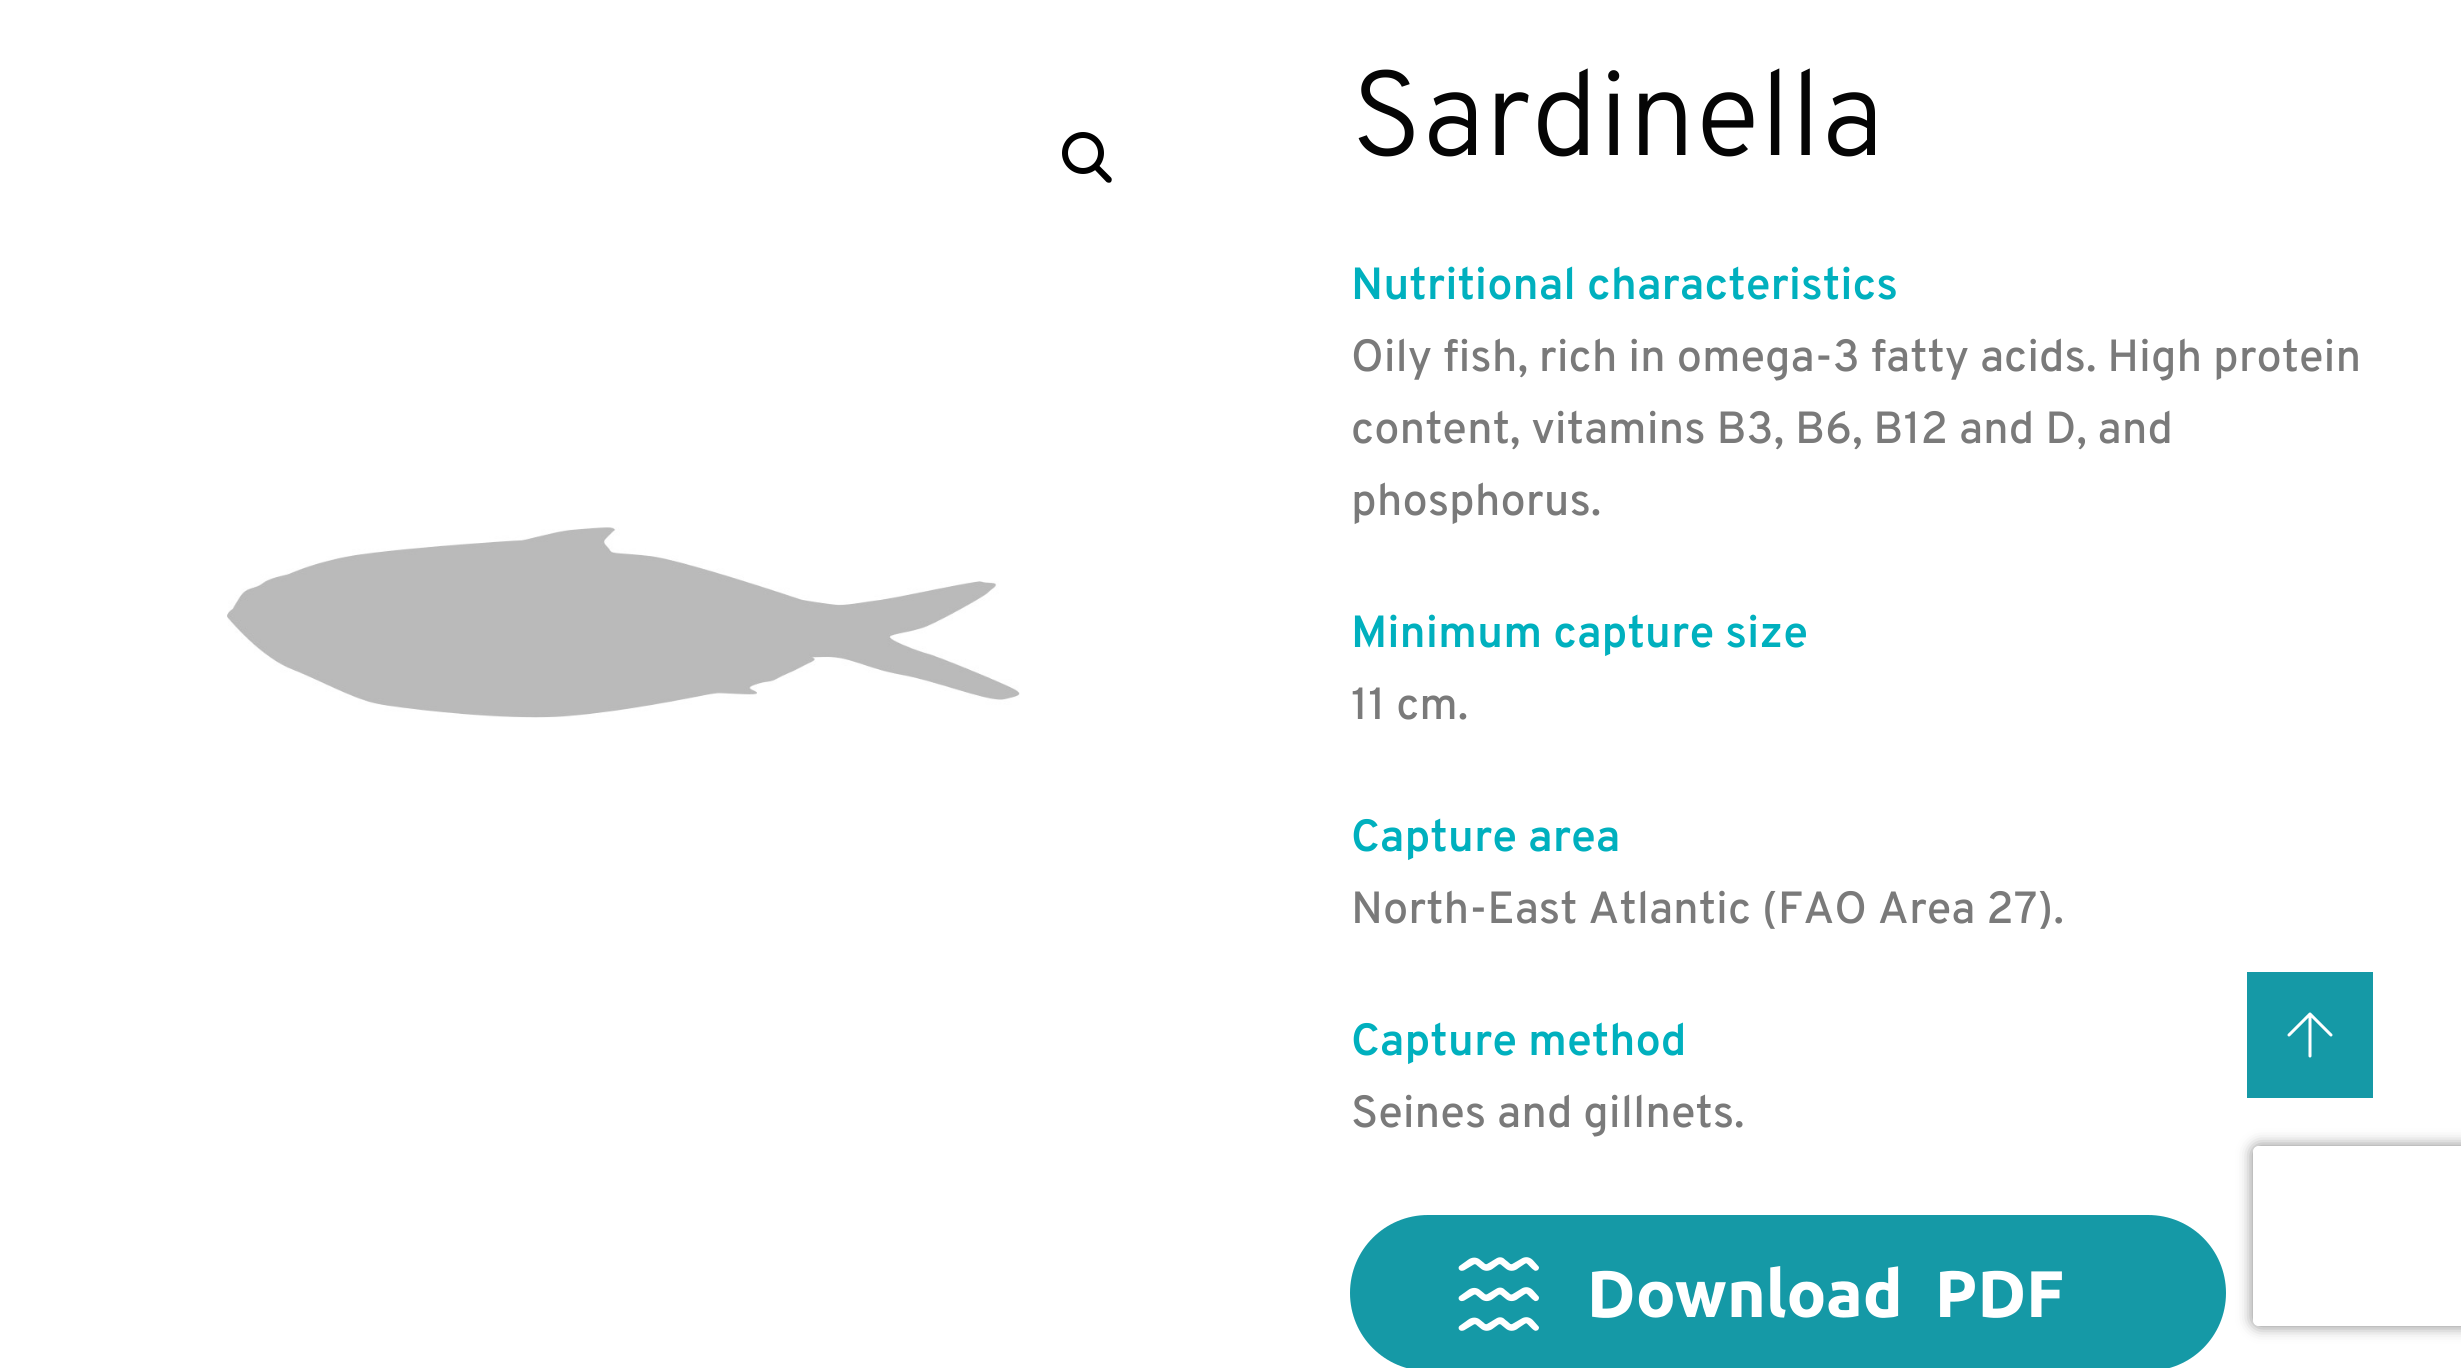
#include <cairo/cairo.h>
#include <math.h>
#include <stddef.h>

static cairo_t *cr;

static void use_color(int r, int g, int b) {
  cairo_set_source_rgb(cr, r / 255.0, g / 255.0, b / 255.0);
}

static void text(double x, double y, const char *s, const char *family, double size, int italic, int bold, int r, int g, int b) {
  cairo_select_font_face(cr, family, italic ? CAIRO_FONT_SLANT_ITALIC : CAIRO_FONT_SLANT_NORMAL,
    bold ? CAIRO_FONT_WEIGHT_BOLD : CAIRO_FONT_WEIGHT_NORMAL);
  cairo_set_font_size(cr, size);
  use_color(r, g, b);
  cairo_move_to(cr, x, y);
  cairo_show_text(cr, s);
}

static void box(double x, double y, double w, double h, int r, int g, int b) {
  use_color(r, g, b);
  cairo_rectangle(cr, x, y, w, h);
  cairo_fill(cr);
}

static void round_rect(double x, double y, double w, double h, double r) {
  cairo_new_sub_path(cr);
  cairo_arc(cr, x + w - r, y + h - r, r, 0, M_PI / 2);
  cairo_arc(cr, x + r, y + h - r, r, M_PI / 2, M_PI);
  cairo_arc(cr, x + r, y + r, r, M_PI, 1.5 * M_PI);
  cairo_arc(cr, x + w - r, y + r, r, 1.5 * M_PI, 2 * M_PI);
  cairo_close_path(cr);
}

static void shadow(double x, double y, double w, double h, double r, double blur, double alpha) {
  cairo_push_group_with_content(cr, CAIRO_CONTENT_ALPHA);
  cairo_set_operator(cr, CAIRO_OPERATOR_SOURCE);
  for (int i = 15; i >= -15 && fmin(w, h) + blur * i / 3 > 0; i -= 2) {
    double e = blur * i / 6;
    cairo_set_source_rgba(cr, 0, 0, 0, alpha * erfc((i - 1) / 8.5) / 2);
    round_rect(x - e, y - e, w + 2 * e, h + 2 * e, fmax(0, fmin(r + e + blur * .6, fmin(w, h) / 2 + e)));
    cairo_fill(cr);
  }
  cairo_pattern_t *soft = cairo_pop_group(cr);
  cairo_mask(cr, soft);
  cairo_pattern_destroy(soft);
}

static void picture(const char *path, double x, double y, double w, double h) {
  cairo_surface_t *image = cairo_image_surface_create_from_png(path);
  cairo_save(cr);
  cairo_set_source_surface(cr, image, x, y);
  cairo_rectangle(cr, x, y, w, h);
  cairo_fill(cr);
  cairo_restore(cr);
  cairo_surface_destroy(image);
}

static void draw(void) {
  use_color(255, 255, 255);
  cairo_paint(cr);
  cairo_arc(cr, 1083, 153, 18, 0, 2 * M_PI);
  use_color(0, 0, 0);
  cairo_set_line_width(cr, 6);
  cairo_stroke(cr);
  cairo_new_path(cr);
  cairo_move_to(cr, 1094, 165);
  cairo_curve_to(cr, 1095, 163.5, 1097, 163.5, 1098.5, 165);
  cairo_line_to(cr, 1111, 177.5);
  cairo_curve_to(cr, 1112, 178.5, 1112, 180.5, 1111, 182);
  cairo_curve_to(cr, 1110, 183, 1108, 183, 1106.5, 182);
  cairo_line_to(cr, 1094, 169);
  cairo_curve_to(cr, 1093, 168, 1093, 166, 1094, 165);
  cairo_close_path(cr);
  cairo_fill(cr);
  picture("img_01.png", 227, 527, 793, 191);
  picture("img_02.png", 1350, 1215, 876, 153);
  box(2247, 972, 126, 126, 21, 153, 166);
  cairo_new_path(cr);
  cairo_move_to(cr, 2310, 1056);
  cairo_line_to(cr, 2310, 1014);
  cairo_move_to(cr, 2289, 1035);
  cairo_line_to(cr, 2310, 1014);
  cairo_line_to(cr, 2331, 1035);
  use_color(255, 255, 255);
  cairo_set_line_width(cr, 3);
  cairo_set_line_cap(cr, CAIRO_LINE_CAP_ROUND);
  cairo_set_line_join(cr, CAIRO_LINE_JOIN_ROUND);
  cairo_stroke(cr);
  cairo_save(cr);
  cairo_set_fill_rule(cr, CAIRO_FILL_RULE_EVEN_ODD);
  cairo_new_path(cr);
  cairo_move_to(cr, 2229, 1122);
  cairo_line_to(cr, 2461, 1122);
  cairo_line_to(cr, 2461, 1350);
  cairo_line_to(cr, 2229, 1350);
  cairo_close_path(cr);
  cairo_move_to(cr, 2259, 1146);
  cairo_line_to(cr, 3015, 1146);
  cairo_curve_to(cr, 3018.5, 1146, 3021, 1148.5, 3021, 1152);
  cairo_line_to(cr, 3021, 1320);
  cairo_curve_to(cr, 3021, 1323.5, 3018.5, 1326, 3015, 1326);
  cairo_line_to(cr, 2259, 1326);
  cairo_curve_to(cr, 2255.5, 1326, 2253, 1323.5, 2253, 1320);
  cairo_line_to(cr, 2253, 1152);
  cairo_curve_to(cr, 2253, 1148.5, 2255.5, 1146, 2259, 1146);
  cairo_close_path(cr);
  cairo_clip(cr);
  use_color(128, 128, 128);
  shadow(2253, 1146, 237, 180, 6, 7.5, 1);
  cairo_restore(cr);
  text(1351, 155, "Sardinella", "Overpass Light", 120, 0, 0, 5, 5, 5);
  text(1351, 299, "Nutritional characteristics", "Overpass SemiBold", 45, 0, 0, 0, 176, 190);
  text(1351, 371, "Oily fish, rich in omega-3 fatty acids. High protein", "Overpass Medium", 45, 0, 0, 122, 122, 122);
  text(1351, 443, "content, vitamins B3, B6, B12 and D, and", "Overpass Medium", 45, 0, 0, 122, 122, 122);
  text(1351, 515, "phosphorus.", "Overpass Medium", 45, 0, 0, 122, 122, 122);
  text(1351, 647, "Minimum capture size", "Overpass SemiBold", 45, 0, 0, 0, 176, 190);
  text(1351, 719, "11 cm.", "Overpass Medium", 45, 0, 0, 122, 122, 122);
  text(1351, 851, "Capture area", "Overpass SemiBold", 45, 0, 0, 0, 176, 190);
  text(1351, 923, "North-East Atlantic (FAO Area 27).", "Overpass Medium", 45, 0, 0, 122, 122, 122);
  text(1351, 1055, "Capture method", "Overpass SemiBold", 45, 0, 0, 0, 176, 190);
  text(1351, 1127, "Seines and gillnets.", "Overpass Medium", 45, 0, 0, 122, 122, 122);
}

int main(void) {
  cairo_surface_t *surface = cairo_image_surface_create(CAIRO_FORMAT_RGB24, 2461, 1368);
  cr = cairo_create(surface);
  cairo_font_options_t *options = cairo_font_options_create();
  cairo_font_options_set_hint_metrics(options, CAIRO_HINT_METRICS_OFF);
  cairo_font_options_set_hint_style(options, CAIRO_HINT_STYLE_NONE);
  cairo_set_font_options(cr, options);
  cairo_set_miter_limit(cr, 4);
  draw();
  cairo_surface_write_to_png(surface, "out.png");
  cairo_font_options_destroy(options);
  cairo_destroy(cr);
  cairo_surface_destroy(surface);
  return 0;
}
